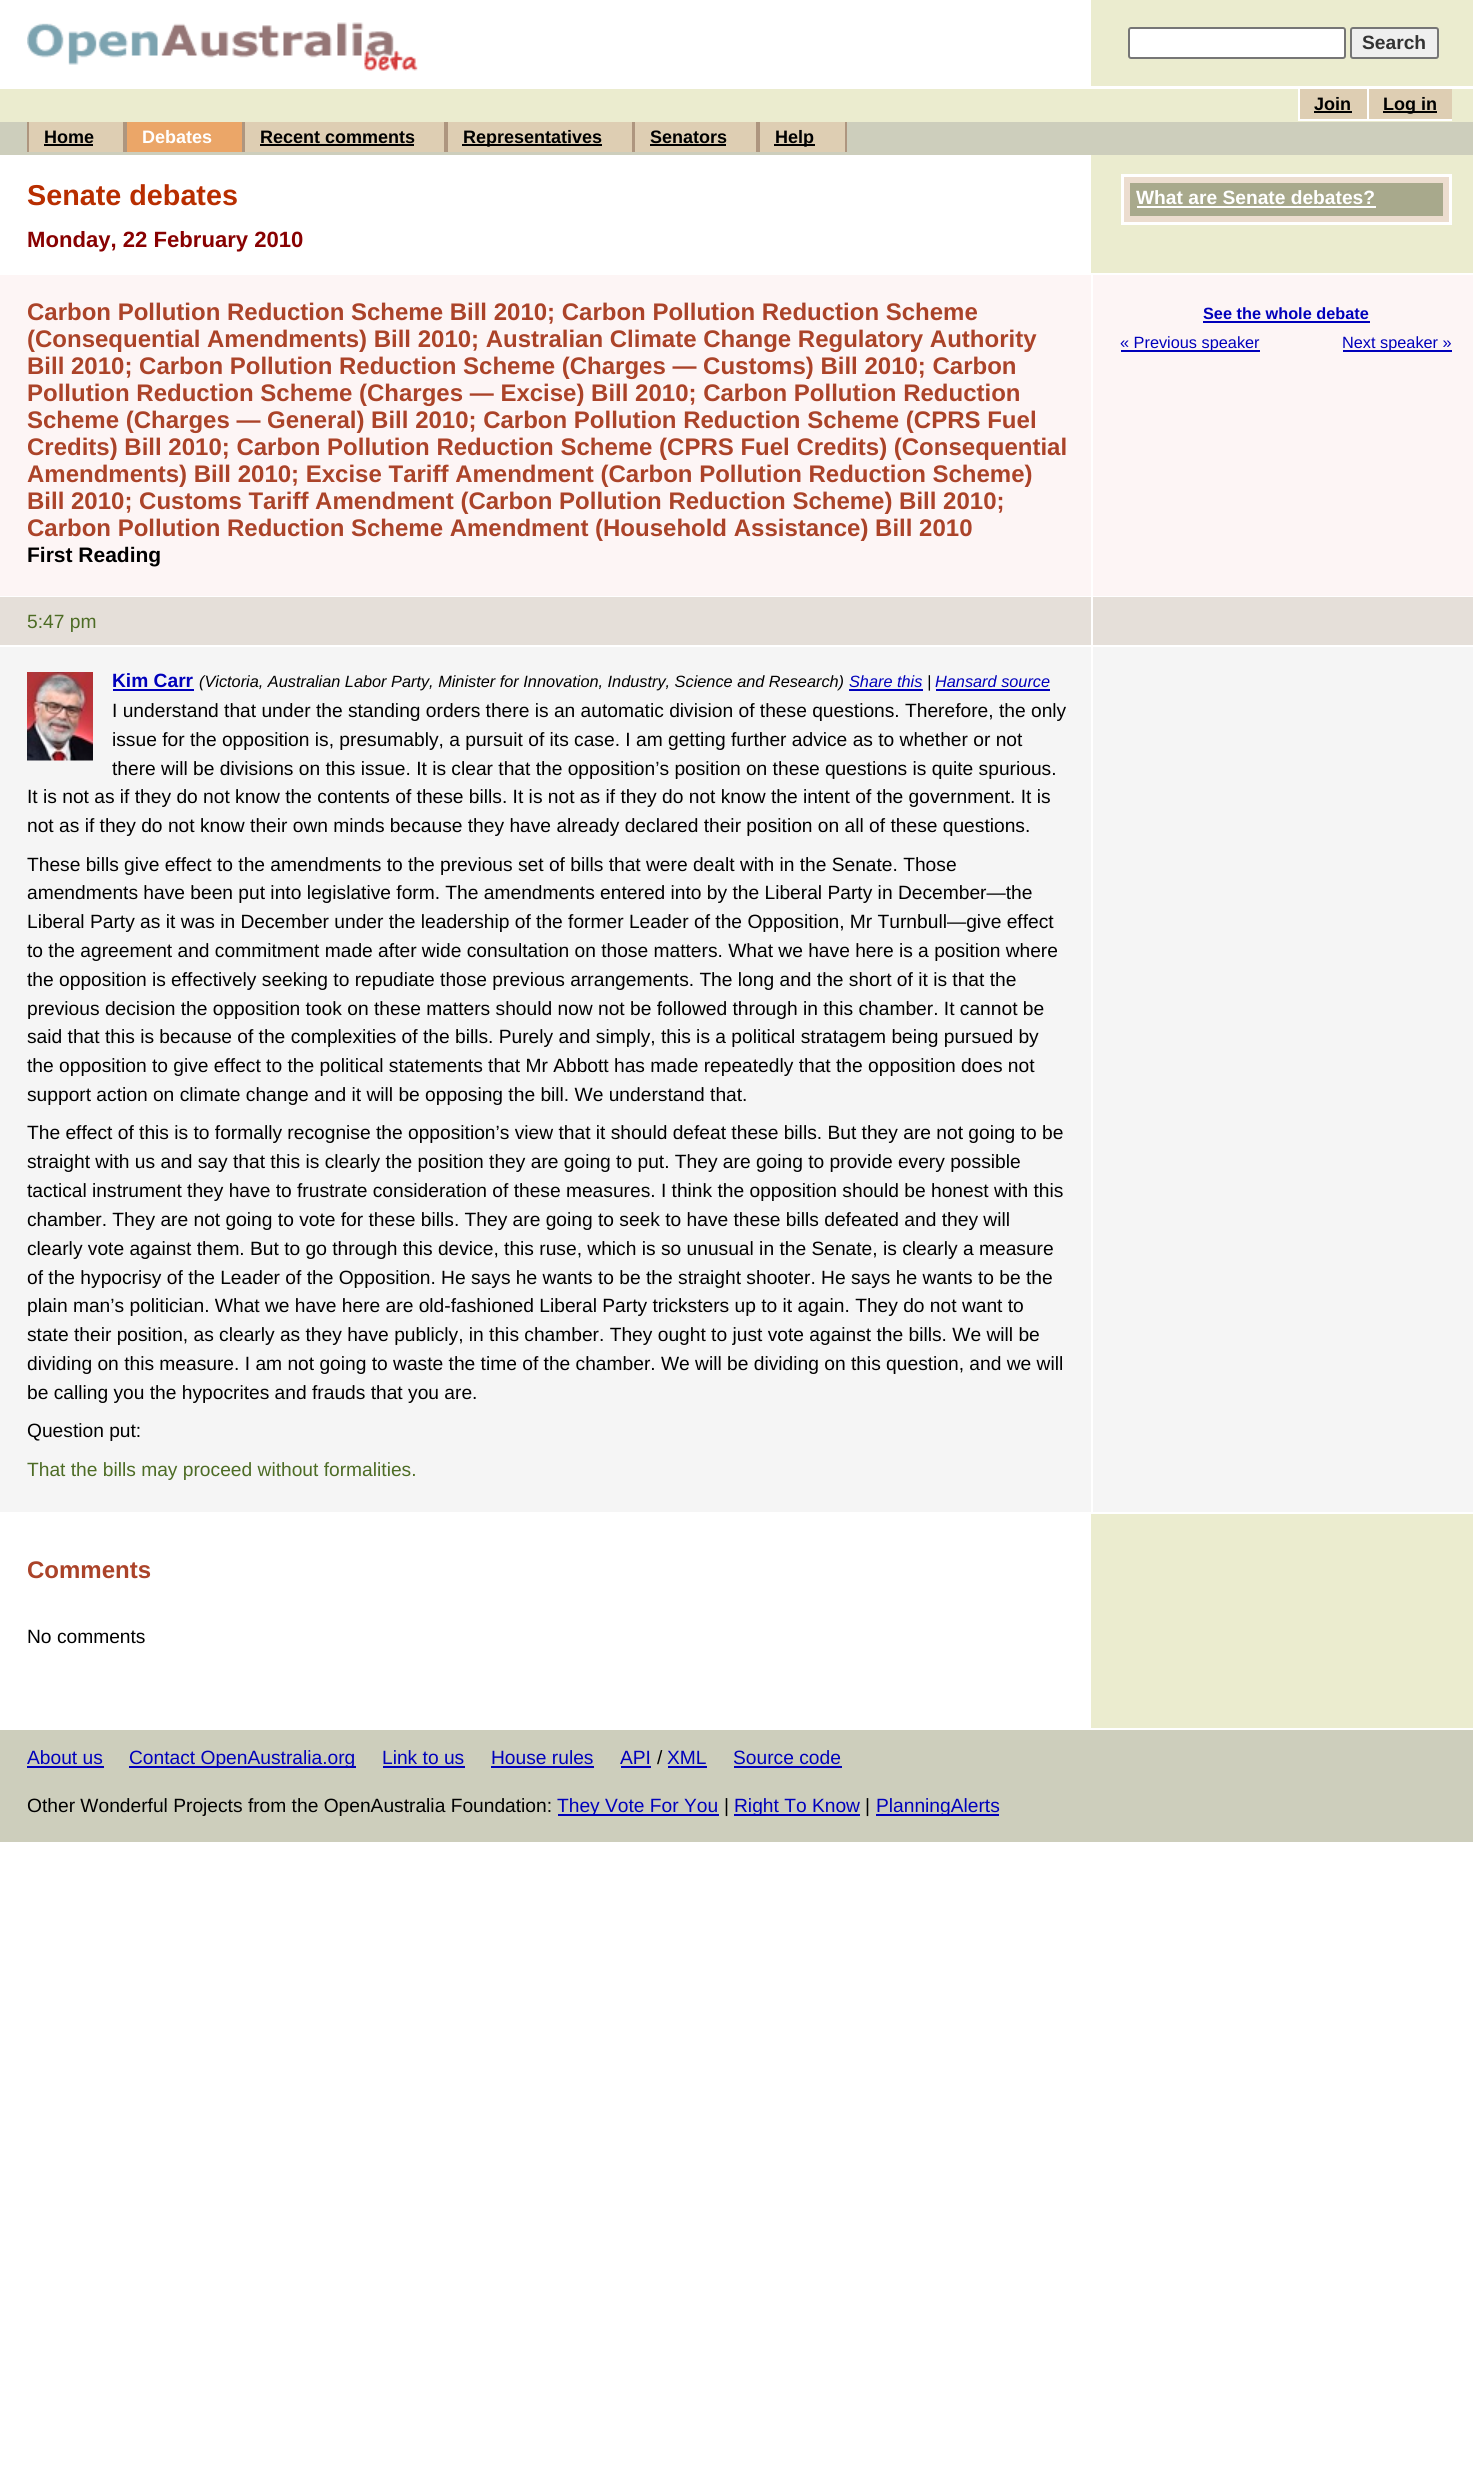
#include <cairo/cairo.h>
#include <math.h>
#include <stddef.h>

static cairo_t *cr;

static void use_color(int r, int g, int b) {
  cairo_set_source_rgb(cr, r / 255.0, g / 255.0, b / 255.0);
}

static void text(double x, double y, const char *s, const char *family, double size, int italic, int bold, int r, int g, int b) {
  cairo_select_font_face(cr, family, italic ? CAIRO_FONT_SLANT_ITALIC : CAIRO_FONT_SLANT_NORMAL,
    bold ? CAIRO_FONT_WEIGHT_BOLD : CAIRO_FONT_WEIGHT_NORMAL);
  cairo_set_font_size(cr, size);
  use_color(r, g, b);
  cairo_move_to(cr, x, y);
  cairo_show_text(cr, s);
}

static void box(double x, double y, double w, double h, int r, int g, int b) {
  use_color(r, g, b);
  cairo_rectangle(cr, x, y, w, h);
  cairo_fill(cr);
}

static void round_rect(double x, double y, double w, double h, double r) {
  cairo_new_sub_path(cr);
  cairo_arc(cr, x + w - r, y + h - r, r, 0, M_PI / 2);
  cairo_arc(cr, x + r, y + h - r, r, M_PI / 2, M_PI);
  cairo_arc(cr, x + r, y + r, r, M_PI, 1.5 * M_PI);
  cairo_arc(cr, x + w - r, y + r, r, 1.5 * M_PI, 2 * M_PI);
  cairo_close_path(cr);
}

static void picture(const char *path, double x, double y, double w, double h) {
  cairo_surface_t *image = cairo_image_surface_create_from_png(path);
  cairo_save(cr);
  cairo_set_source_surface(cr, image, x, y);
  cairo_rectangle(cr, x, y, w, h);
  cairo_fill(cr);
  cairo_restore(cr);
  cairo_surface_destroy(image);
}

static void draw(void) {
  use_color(255, 255, 255);
  cairo_paint(cr);
  picture("img_01.png", 27, 22, 391, 49);
  box(1091, 0, 382, 86, 235, 236, 207);
  use_color(255, 255, 255);
  round_rect(1129, 28, 216, 30, 2);
  cairo_fill_preserve(cr);
  use_color(118, 118, 118);
  cairo_stroke(cr);
  use_color(239, 239, 239);
  round_rect(1351, 28, 87, 30, 2);
  cairo_fill_preserve(cr);
  use_color(118, 118, 118);
  cairo_stroke(cr);
  box(0, 89, 1473, 33, 235, 236, 207);
  box(1300, 89, 67, 30, 222, 206, 179);
  box(1298, 119, 154, 2, 255, 255, 255);
  box(1298, 89, 2, 31, 255, 255, 255);
  box(1314, 111, 38, 2, 0, 0, 0);
  box(1369, 89, 83, 30, 222, 206, 179);
  box(1367, 89, 2, 31, 255, 255, 255);
  box(1383, 111, 54, 2, 0, 0, 0);
  box(0, 122, 1473, 33, 205, 206, 188);
  box(29, 122, 94, 30, 222, 206, 179);
  box(123, 122, 4, 30, 174, 150, 127);
  box(27, 122, 2, 30, 174, 150, 127);
  box(44, 144, 49, 2, 0, 0, 0);
  box(127, 122, 115, 30, 235, 166, 104);
  box(242, 122, 3, 30, 174, 150, 127);
  box(245, 122, 199, 30, 222, 206, 179);
  box(444, 122, 4, 30, 174, 150, 127);
  box(260, 144, 154, 2, 0, 0, 0);
  box(448, 122, 184, 30, 222, 206, 179);
  box(632, 122, 3, 30, 174, 150, 127);
  box(462, 144, 140, 2, 0, 0, 0);
  box(635, 122, 121, 30, 222, 206, 179);
  box(756, 122, 4, 30, 174, 150, 127);
  box(650, 144, 76, 2, 0, 0, 0);
  box(760, 122, 85, 30, 222, 206, 179);
  box(845, 122, 2, 30, 174, 150, 127);
  box(774, 144, 41, 2, 0, 0, 0);
  box(1091, 155, 382, 118, 235, 236, 207);
  use_color(236, 221, 207);
  cairo_rectangle(cr, 1122.5, 175.5, 328, 48);
  cairo_fill_preserve(cr);
  use_color(255, 255, 255);
  cairo_set_line_width(cr, 3);
  cairo_stroke(cr);
  box(1130, 183, 313, 33, 168, 169, 140);
  box(1137, 206, 239, 2, 255, 255, 255);
  box(0, 275, 1473, 321, 253, 245, 245);
  box(1091, 275, 2, 321, 255, 255, 255);
  box(1203, 321, 167, 2, 0, 0, 187);
  box(1121, 350, 139, 2, 0, 0, 187);
  box(1343, 350, 109, 2, 0, 0, 187);
  box(0, 597, 1473, 48, 229, 223, 217);
  box(1091, 597, 2, 48, 255, 255, 255);
  box(0, 647, 1473, 865, 245, 245, 245);
  box(1091, 647, 2, 865, 255, 255, 255);
  picture("img_02.png", 27, 672, 66, 89);
  box(113, 689, 81, 2, 0, 0, 187);
  box(849, 689, 74, 2, 0, 0, 187);
  box(936, 689, 114, 2, 0, 0, 187);
  box(1091, 1514, 382, 214, 235, 236, 207);
  box(0, 1730, 1473, 112, 205, 206, 188);
  box(27, 1766, 77, 2, 0, 0, 187);
  box(129, 1766, 227, 2, 0, 0, 187);
  box(383, 1766, 82, 2, 0, 0, 187);
  box(491, 1766, 103, 2, 0, 0, 187);
  box(621, 1766, 30, 2, 0, 0, 187);
  box(668, 1766, 39, 2, 0, 0, 187);
  box(734, 1766, 108, 2, 0, 0, 187);
  box(558, 1814, 161, 2, 0, 0, 187);
  box(734, 1814, 126, 2, 0, 0, 187);
  box(876, 1814, 123, 2, 0, 0, 187);
  text(1362, 49, "Search", "Liberation Sans", 19.2, 0, 1, 51, 51, 51);
  text(1314, 110, "Join", "Liberation Sans", 18, 0, 1, 0, 0, 0);
  text(1383, 110, "Log in", "Liberation Sans", 18, 0, 1, 0, 0, 0);
  text(44, 143, "Home", "Liberation Sans", 18, 0, 1, 0, 0, 0);
  text(142, 143, "Debates", "Liberation Sans", 18, 0, 1, 255, 255, 255);
  text(260, 143, "Recent comments", "Liberation Sans", 18, 0, 1, 0, 0, 0);
  text(463, 143, "Representatives", "Liberation Sans", 18, 0, 1, 0, 0, 0);
  text(650, 143, "Senators", "Liberation Sans", 18, 0, 1, 0, 0, 0);
  text(775, 143, "Help", "Liberation Sans", 18, 0, 1, 0, 0, 0);
  text(27, 205, "Senate debates", "Liberation Sans", 28.75, 0, 1, 184, 46, 0);
  text(27, 247, "Monday, 22 February 2010", "Liberation Sans", 22.1, 0, 1, 136, 1, 1);
  text(1136, 204, "What are Senate debates?", "Liberation Sans", 19.2, 0, 1, 255, 255, 255);
  text(27, 320, "Carbon Pollution Reduction Scheme Bill 2010; Carbon Pollution Reduction Scheme", "Liberation Sans", 24, 0, 1, 171, 67, 41);
  text(27, 347, "(Consequential Amendments) Bill 2010; Australian Climate Change Regulatory Authority", "Liberation Sans", 24, 0, 1, 171, 67, 41);
  text(27, 374, "Bill 2010; Carbon Pollution Reduction Scheme (Charges — Customs) Bill 2010; Carbon", "Liberation Sans", 24, 0, 1, 171, 67, 41);
  text(27, 401, "Pollution Reduction Scheme (Charges — Excise) Bill 2010; Carbon Pollution Reduction", "Liberation Sans", 24, 0, 1, 171, 67, 41);
  text(27, 428, "Scheme (Charges — General) Bill 2010; Carbon Pollution Reduction Scheme (CPRS Fuel", "Liberation Sans", 24, 0, 1, 171, 67, 41);
  text(27, 455, "Credits) Bill 2010; Carbon Pollution Reduction Scheme (CPRS Fuel Credits) (Consequential", "Liberation Sans", 24, 0, 1, 171, 67, 41);
  text(27, 482, "Amendments) Bill 2010; Excise Tariff Amendment (Carbon Pollution Reduction Scheme)", "Liberation Sans", 24, 0, 1, 171, 67, 41);
  text(27, 509, "Bill 2010; Customs Tariff Amendment (Carbon Pollution Reduction Scheme) Bill 2010;", "Liberation Sans", 24, 0, 1, 171, 67, 41);
  text(27, 536, "Carbon Pollution Reduction Scheme Amendment (Household Assistance) Bill 2010", "Liberation Sans", 24, 0, 1, 171, 67, 41);
  text(27, 562, "First Reading", "Liberation Sans", 21, 0, 1, 0, 0, 0);
  text(1203, 319, "See the whole debate", "Liberation Sans", 16.3, 0, 1, 0, 0, 187);
  text(1120, 348, "« Previous speaker", "Liberation Sans", 16.3, 0, 0, 0, 0, 187);
  text(1342, 348, "Next speaker »", "Liberation Sans", 16.3, 0, 0, 0, 0, 187);
  text(27, 628, "5:47 pm", "Liberation Sans", 19.2, 0, 0, 77, 108, 37);
  text(112, 687, "Kim Carr", "Liberation Sans", 19.2, 0, 1, 0, 0, 187);
  text(199, 687, "(Victoria, Australian Labor Party, Minister for Innovation, Industry, Science and Research)", "Liberation Sans", 16.3, 1, 0, 0, 0, 0);
  text(849, 687, "Share this", "Liberation Sans", 16.3, 1, 0, 0, 0, 187);
  text(927, 687, "|", "Liberation Sans", 16.3, 1, 0, 0, 0, 0);
  text(935, 687, "Hansard source", "Liberation Sans", 16.3, 1, 0, 0, 0, 187);
  text(112, 717, "I understand that under the standing orders there is an automatic division of these questions. Therefore, the only", "Liberation Sans", 19.2, 0, 0, 0, 0, 0);
  text(112, 746, "issue for the opposition is, presumably, a pursuit of its case. I am getting further advice as to whether or not", "Liberation Sans", 19.2, 0, 0, 0, 0, 0);
  text(112, 775, "there will be divisions on this issue. It is clear that the opposition’s position on these questions is quite spurious.", "Liberation Sans", 19.2, 0, 0, 0, 0, 0);
  text(27, 803, "It is not as if they do not know the contents of these bills. It is not as if they do not know the intent of the government. It is", "Liberation Sans", 19.2, 0, 0, 0, 0, 0);
  text(27, 832, "not as if they do not know their own minds because they have already declared their position on all of these questions.", "Liberation Sans", 19.2, 0, 0, 0, 0, 0);
  text(27, 871, "These bills give effect to the amendments to the previous set of bills that were dealt with in the Senate. Those", "Liberation Sans", 19.2, 0, 0, 0, 0, 0);
  text(27, 899, "amendments have been put into legislative form. The amendments entered into by the Liberal Party in December—the", "Liberation Sans", 19.2, 0, 0, 0, 0, 0);
  text(27, 928, "Liberal Party as it was in December under the leadership of the former Leader of the Opposition, Mr Turnbull—give effect", "Liberation Sans", 19.2, 0, 0, 0, 0, 0);
  text(27, 957, "to the agreement and commitment made after wide consultation on those matters. What we have here is a position where", "Liberation Sans", 19.2, 0, 0, 0, 0, 0);
  text(27, 986, "the opposition is effectively seeking to repudiate those previous arrangements. The long and the short of it is that the", "Liberation Sans", 19.2, 0, 0, 0, 0, 0);
  text(27, 1015, "previous decision the opposition took on these matters should now not be followed through in this chamber. It cannot be", "Liberation Sans", 19.2, 0, 0, 0, 0, 0);
  text(27, 1043, "said that this is because of the complexities of the bills. Purely and simply, this is a political stratagem being pursued by", "Liberation Sans", 19.2, 0, 0, 0, 0, 0);
  text(27, 1072, "the opposition to give effect to the political statements that Mr Abbott has made repeatedly that the opposition does not", "Liberation Sans", 19.2, 0, 0, 0, 0, 0);
  text(27, 1101, "support action on climate change and it will be opposing the bill. We understand that.", "Liberation Sans", 19.2, 0, 0, 0, 0, 0);
  text(27, 1139, "The effect of this is to formally recognise the opposition’s view that it should defeat these bills. But they are not going to be", "Liberation Sans", 19.2, 0, 0, 0, 0, 0);
  text(27, 1168, "straight with us and say that this is clearly the position they are going to put. They are going to provide every possible", "Liberation Sans", 19.2, 0, 0, 0, 0, 0);
  text(27, 1197, "tactical instrument they have to frustrate consideration of these measures. I think the opposition should be honest with this", "Liberation Sans", 19.2, 0, 0, 0, 0, 0);
  text(27, 1226, "chamber. They are not going to vote for these bills. They are going to seek to have these bills defeated and they will", "Liberation Sans", 19.2, 0, 0, 0, 0, 0);
  text(27, 1255, "clearly vote against them. But to go through this device, this ruse, which is so unusual in the Senate, is clearly a measure", "Liberation Sans", 19.2, 0, 0, 0, 0, 0);
  text(27, 1284, "of the hypocrisy of the Leader of the Opposition. He says he wants to be the straight shooter. He says he wants to be the", "Liberation Sans", 19.2, 0, 0, 0, 0, 0);
  text(27, 1312, "plain man’s politician. What we have here are old-fashioned Liberal Party tricksters up to it again. They do not want to", "Liberation Sans", 19.2, 0, 0, 0, 0, 0);
  text(27, 1341, "state their position, as clearly as they have publicly, in this chamber. They ought to just vote against the bills. We will be", "Liberation Sans", 19.2, 0, 0, 0, 0, 0);
  text(27, 1370, "dividing on this measure. I am not going to waste the time of the chamber. We will be dividing on this question, and we will", "Liberation Sans", 19.2, 0, 0, 0, 0, 0);
  text(27, 1399, "be calling you the hypocrites and frauds that you are.", "Liberation Sans", 19.2, 0, 0, 0, 0, 0);
  text(27, 1437, "Question put:", "Liberation Sans", 19.2, 0, 0, 0, 0, 0);
  text(27, 1476, "That the bills may proceed without formalities.", "Liberation Sans", 19.2, 0, 0, 77, 108, 37);
  text(27, 1578, "Comments", "Liberation Sans", 24, 0, 1, 171, 67, 41);
  text(27, 1643, "No comments", "Liberation Sans", 19.2, 0, 0, 0, 0, 0);
  text(27, 1764, "About us", "Liberation Sans", 19.2, 0, 0, 0, 0, 187);
  text(129, 1764, "Contact OpenAustralia.org", "Liberation Sans", 19.2, 0, 0, 0, 0, 187);
  text(382, 1764, "Link to us", "Liberation Sans", 19.2, 0, 0, 0, 0, 187);
  text(491, 1764, "House rules", "Liberation Sans", 19.2, 0, 0, 0, 0, 187);
  text(620, 1764, "API", "Liberation Sans", 19.2, 0, 0, 0, 0, 187);
  text(657, 1764, "/", "Liberation Sans", 19.2, 0, 0, 0, 0, 0);
  text(667, 1764, "XML", "Liberation Sans", 19.2, 0, 0, 0, 0, 187);
  text(733, 1764, "Source code", "Liberation Sans", 19.2, 0, 0, 0, 0, 187);
  text(27, 1812, "Other Wonderful Projects from the OpenAustralia Foundation:", "Liberation Sans", 19.2, 0, 0, 0, 0, 0);
  text(557, 1812, "They Vote For You", "Liberation Sans", 19.2, 0, 0, 0, 0, 187);
  text(724, 1812, "|", "Liberation Sans", 19.2, 0, 0, 0, 0, 0);
  text(734, 1812, "Right To Know", "Liberation Sans", 19.2, 0, 0, 0, 0, 187);
  text(865, 1812, "|", "Liberation Sans", 19.2, 0, 0, 0, 0, 0);
  text(876, 1812, "PlanningAlerts", "Liberation Sans", 19.2, 0, 0, 0, 0, 187);
}

int main(void) {
  cairo_surface_t *surface = cairo_image_surface_create(CAIRO_FORMAT_RGB24, 1473, 2480);
  cr = cairo_create(surface);
  cairo_font_options_t *options = cairo_font_options_create();
  cairo_font_options_set_hint_metrics(options, CAIRO_HINT_METRICS_OFF);
  cairo_font_options_set_hint_style(options, CAIRO_HINT_STYLE_NONE);
  cairo_set_font_options(cr, options);
  cairo_set_miter_limit(cr, 4);
  draw();
  cairo_surface_write_to_png(surface, "out.png");
  cairo_font_options_destroy(options);
  cairo_destroy(cr);
  cairo_surface_destroy(surface);
  return 0;
}
